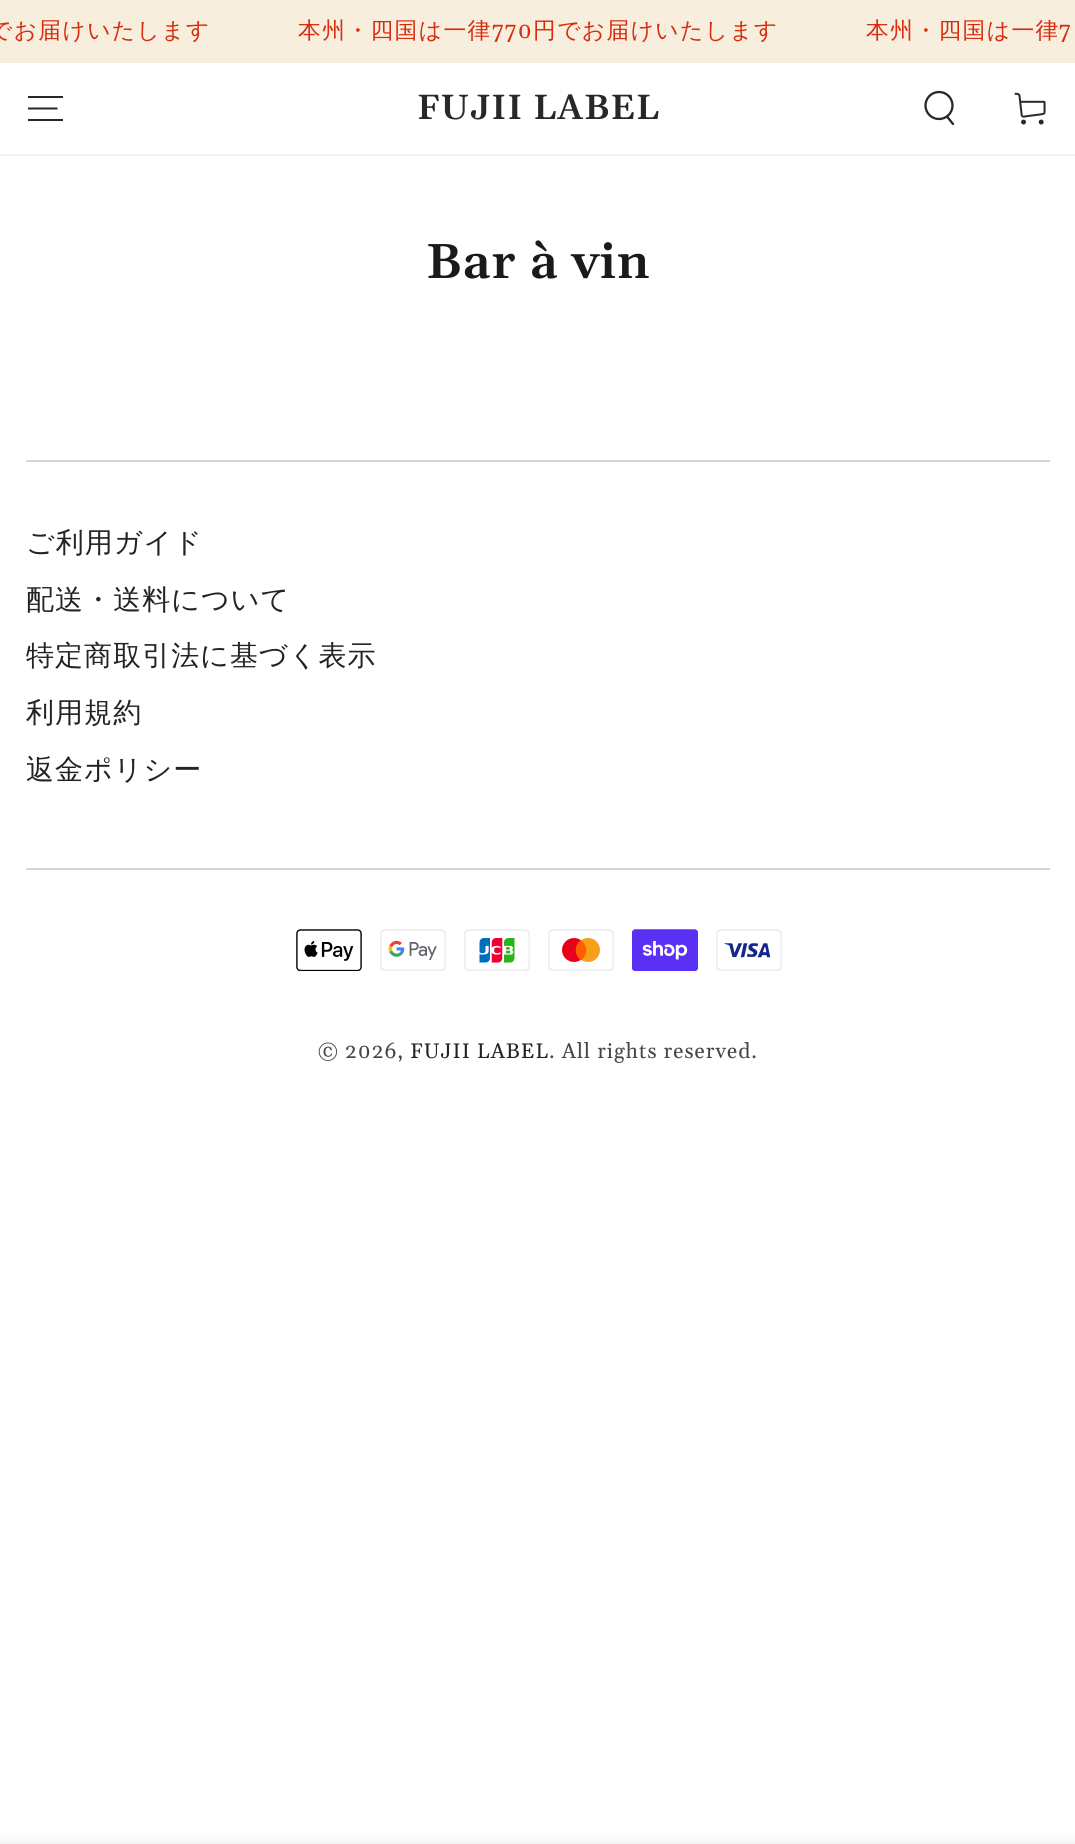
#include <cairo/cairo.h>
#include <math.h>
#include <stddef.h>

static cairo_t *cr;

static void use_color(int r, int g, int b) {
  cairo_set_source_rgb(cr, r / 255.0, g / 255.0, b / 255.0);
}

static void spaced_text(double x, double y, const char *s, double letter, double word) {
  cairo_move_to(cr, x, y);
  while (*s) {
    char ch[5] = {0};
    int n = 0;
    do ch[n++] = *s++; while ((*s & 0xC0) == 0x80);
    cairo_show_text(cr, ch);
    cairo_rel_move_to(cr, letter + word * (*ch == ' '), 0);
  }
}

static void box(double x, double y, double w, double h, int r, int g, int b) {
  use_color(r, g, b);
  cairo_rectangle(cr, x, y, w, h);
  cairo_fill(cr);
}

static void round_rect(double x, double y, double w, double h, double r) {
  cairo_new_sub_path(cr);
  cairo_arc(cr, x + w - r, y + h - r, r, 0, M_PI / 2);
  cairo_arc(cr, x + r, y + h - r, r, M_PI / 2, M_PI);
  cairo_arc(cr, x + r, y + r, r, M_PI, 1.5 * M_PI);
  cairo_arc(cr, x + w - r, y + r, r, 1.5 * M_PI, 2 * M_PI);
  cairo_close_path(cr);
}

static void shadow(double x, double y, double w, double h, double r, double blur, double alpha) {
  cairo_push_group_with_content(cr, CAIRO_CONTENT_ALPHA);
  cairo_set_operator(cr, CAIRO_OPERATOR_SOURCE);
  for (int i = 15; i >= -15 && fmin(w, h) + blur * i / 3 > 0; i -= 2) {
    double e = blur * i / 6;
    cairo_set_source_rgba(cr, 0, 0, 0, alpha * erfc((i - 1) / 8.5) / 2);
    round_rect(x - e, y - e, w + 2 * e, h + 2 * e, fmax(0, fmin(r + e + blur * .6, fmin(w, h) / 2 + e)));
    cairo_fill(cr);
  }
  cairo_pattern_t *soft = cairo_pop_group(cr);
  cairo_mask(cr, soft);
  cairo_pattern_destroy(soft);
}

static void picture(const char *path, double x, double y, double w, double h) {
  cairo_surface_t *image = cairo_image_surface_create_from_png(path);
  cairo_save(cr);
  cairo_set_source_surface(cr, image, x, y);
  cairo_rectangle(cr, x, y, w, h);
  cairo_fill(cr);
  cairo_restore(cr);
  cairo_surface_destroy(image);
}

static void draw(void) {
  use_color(255, 255, 255);
  cairo_paint(cr);
  box(0, 0, 1075, 63, 247, 238, 221);
  box(0, 154, 1075, 2, 242, 242, 244);
  cairo_new_path(cr);
  cairo_move_to(cr, 28, 120);
  cairo_line_to(cr, 63, 120);
  cairo_move_to(cr, 28, 108.5);
  cairo_line_to(cr, 57.5, 108.5);
  cairo_move_to(cr, 28, 97);
  cairo_line_to(cr, 63, 97);
  use_color(40, 40, 40);
  cairo_stroke(cr);
  cairo_arc(cr, 939, 105.5, 13.5, 0, 2 * M_PI);
  cairo_set_line_width(cr, 2.3);
  cairo_stroke(cr);
  cairo_new_path(cr);
  cairo_move_to(cr, 947, 116.5);
  cairo_line_to(cr, 953, 124);
  cairo_set_line_cap(cr, CAIRO_LINE_CAP_ROUND);
  cairo_stroke(cr);
  picture("img_01.png", 1014, 92, 32, 33);
  box(26, 460, 1024, 2, 210, 213, 217);
  box(26, 868, 1024, 2, 210, 213, 217);
  picture("img_02.png", 296, 929, 66, 42);
  picture("img_03.png", 380, 929, 66, 42);
  picture("img_04.png", 464, 929, 66, 42);
  picture("img_05.png", 548, 929, 66, 42);
  picture("img_06.png", 632, 929, 66, 42);
  picture("img_07.png", 716, 929, 66, 42);
  use_color(33, 35, 38);
  shadow(0, 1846, 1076, 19, 0, 7, 0.15);
  cairo_select_font_face(cr, "WenQuanYi Zen Hei Medium", CAIRO_FONT_SLANT_NORMAL, CAIRO_FONT_WEIGHT_NORMAL);
  cairo_set_font_size(cr, 22.75);
  use_color(215, 44, 13);
  spaced_text(-11, 38, "でお届けいたします", 1.4, 0);
  spaced_text(298, 38, "本州・四国は一律", 1.4, 0);
  cairo_select_font_face(cr, "Gelasio", CAIRO_FONT_SLANT_NORMAL, CAIRO_FONT_WEIGHT_NORMAL);
  spaced_text(492, 38, "770", 1.4, 0);
  cairo_select_font_face(cr, "WenQuanYi Zen Hei Medium", CAIRO_FONT_SLANT_NORMAL, CAIRO_FONT_WEIGHT_NORMAL);
  spaced_text(533, 38, "円でお届けいたします", 1.4, 0);
  spaced_text(866, 38, "本州・四国は一律", 1.4, 0);
  cairo_select_font_face(cr, "Gelasio", CAIRO_FONT_SLANT_NORMAL, CAIRO_FONT_WEIGHT_NORMAL);
  spaced_text(1059, 38, "7", 1.4, 0);
  cairo_select_font_face(cr, "Gelasio SemiBold", CAIRO_FONT_SLANT_NORMAL, CAIRO_FONT_WEIGHT_NORMAL);
  cairo_set_font_size(cr, 35);
  use_color(40, 40, 40);
  spaced_text(417, 119, "FUJII LABEL", 1.05, 0);
  cairo_set_font_size(cr, 49);
  use_color(26, 27, 24);
  spaced_text(426, 278, "Bar à vin", 1.05, 0);
  cairo_select_font_face(cr, "WenQuanYi Zen Hei Medium", CAIRO_FONT_SLANT_NORMAL, CAIRO_FONT_WEIGHT_NORMAL);
  cairo_set_font_size(cr, 28);
  use_color(33, 35, 38);
  spaced_text(26, 552, "ご利用ガイド", 1.05, 0);
  spaced_text(26, 609, "配送・送料について", 1.05, 0);
  spaced_text(26, 665, "特定商取引法に基づく表示", 1.05, 0);
  spaced_text(26, 722, "利用規約", 1.05, 0);
  spaced_text(26, 779, "返金ポリシー", 1.05, 0);
  cairo_select_font_face(cr, "Gelasio", CAIRO_FONT_SLANT_NORMAL, CAIRO_FONT_WEIGHT_NORMAL);
  cairo_set_font_size(cr, 21);
  use_color(66, 71, 76);
  spaced_text(318, 1058, "© 2026,", 1.05, 0);
  use_color(33, 35, 38);
  spaced_text(410, 1058, "FUJII LABEL", 1.05, 0);
  use_color(66, 71, 76);
  spaced_text(549, 1058, ". All rights reserved.", 1.05, 0);
}

int main(void) {
  cairo_surface_t *surface = cairo_image_surface_create(CAIRO_FORMAT_RGB24, 1075, 1844);
  cr = cairo_create(surface);
  cairo_font_options_t *options = cairo_font_options_create();
  cairo_font_options_set_hint_metrics(options, CAIRO_HINT_METRICS_OFF);
  cairo_font_options_set_hint_style(options, CAIRO_HINT_STYLE_NONE);
  cairo_set_font_options(cr, options);
  cairo_set_miter_limit(cr, 4);
  draw();
  cairo_surface_write_to_png(surface, "out.png");
  cairo_font_options_destroy(options);
  cairo_destroy(cr);
  cairo_surface_destroy(surface);
  return 0;
}
